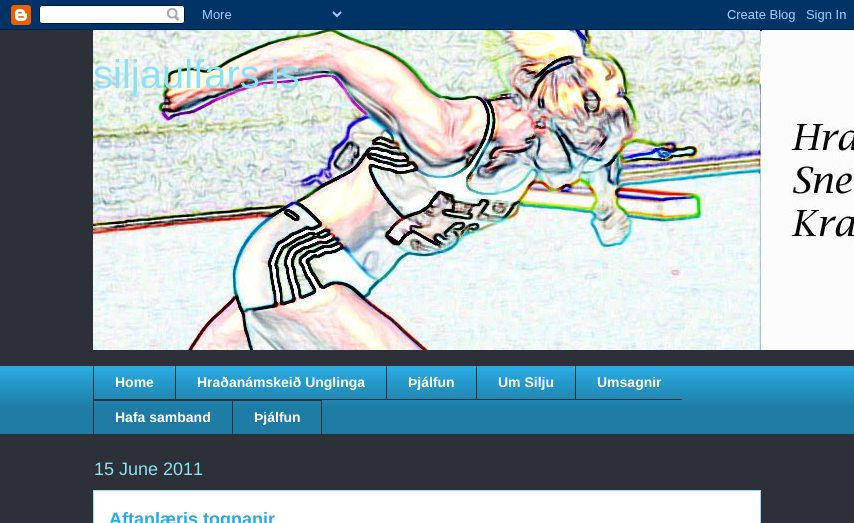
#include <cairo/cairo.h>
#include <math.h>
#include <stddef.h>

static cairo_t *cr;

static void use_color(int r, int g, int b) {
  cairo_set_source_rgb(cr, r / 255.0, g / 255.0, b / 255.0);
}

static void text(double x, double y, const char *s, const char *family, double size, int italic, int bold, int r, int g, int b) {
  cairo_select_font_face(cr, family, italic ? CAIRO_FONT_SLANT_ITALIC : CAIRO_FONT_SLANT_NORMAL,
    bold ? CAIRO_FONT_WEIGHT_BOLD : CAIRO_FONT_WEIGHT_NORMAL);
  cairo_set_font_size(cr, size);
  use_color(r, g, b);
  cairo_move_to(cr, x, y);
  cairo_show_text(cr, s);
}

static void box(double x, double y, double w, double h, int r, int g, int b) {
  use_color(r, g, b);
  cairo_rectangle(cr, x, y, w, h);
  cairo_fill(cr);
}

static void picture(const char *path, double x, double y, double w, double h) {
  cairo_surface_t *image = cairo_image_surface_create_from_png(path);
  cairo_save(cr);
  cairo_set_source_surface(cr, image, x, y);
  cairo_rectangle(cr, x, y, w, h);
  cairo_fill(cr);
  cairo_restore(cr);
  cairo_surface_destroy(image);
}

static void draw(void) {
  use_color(45, 48, 55);
  cairo_paint(cr);
  picture("img_01.png", 0, 0, 854, 30);
  picture("img_02.png", 93, 30, 761, 320);
  box(0, 366, 854, 68, 41, 170, 225);
  picture("img_03.png", 0, 371, 854, 63);
  box(93, 399, 589, 1, 45, 48, 55);
  box(93, 365, 1, 35, 45, 48, 55);
  box(175, 365, 1, 35, 45, 48, 55);
  box(386, 365, 1, 35, 45, 48, 55);
  box(476, 365, 1, 35, 45, 48, 55);
  box(575, 365, 1, 35, 45, 48, 55);
  box(93, 400, 139, 1, 45, 48, 55);
  box(93, 400, 1, 35, 45, 48, 55);
  cairo_rectangle(cr, 232.5, 400.5, 89, 34);
  cairo_set_line_width(cr, 1);
  cairo_stroke(cr);
  use_color(255, 255, 255);
  cairo_rectangle(cr, 93.5, 490.5, 667, 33);
  cairo_fill_preserve(cr);
  use_color(140, 225, 245);
  cairo_stroke(cr);
  text(93, 88, "siljaulfars.is", "Liberation Sans", 40, 0, 0, 140, 225, 245);
  text(115, 387, "Home", "Liberation Sans", 14, 0, 1, 255, 255, 255);
  text(197, 387, "Hraðanámskeið Unglinga", "Liberation Sans", 14, 0, 1, 255, 255, 255);
  text(408, 387, "Þjálfun", "Liberation Sans", 14, 0, 1, 255, 255, 255);
  text(498, 387, "Um Silju", "Liberation Sans", 14, 0, 1, 255, 255, 255);
  text(597, 387, "Umsagnir", "Liberation Sans", 14, 0, 1, 255, 255, 255);
  text(115, 422, "Hafa samband", "Liberation Sans", 14, 0, 1, 255, 255, 255);
  text(254, 422, "Þjálfun", "Liberation Sans", 14, 0, 1, 255, 255, 255);
  text(94, 475, "15 June 2011", "Liberation Sans", 18, 0, 0, 140, 225, 245);
  text(109, 525, "Aftanlæris tognanir", "Liberation Sans", 18, 0, 1, 41, 170, 225);
}

int main(void) {
  cairo_surface_t *surface = cairo_image_surface_create(CAIRO_FORMAT_RGB24, 854, 523);
  cr = cairo_create(surface);
  cairo_font_options_t *options = cairo_font_options_create();
  cairo_font_options_set_hint_metrics(options, CAIRO_HINT_METRICS_OFF);
  cairo_font_options_set_hint_style(options, CAIRO_HINT_STYLE_NONE);
  cairo_set_font_options(cr, options);
  cairo_set_miter_limit(cr, 4);
  draw();
  cairo_surface_write_to_png(surface, "out.png");
  cairo_font_options_destroy(options);
  cairo_destroy(cr);
  cairo_surface_destroy(surface);
  return 0;
}
